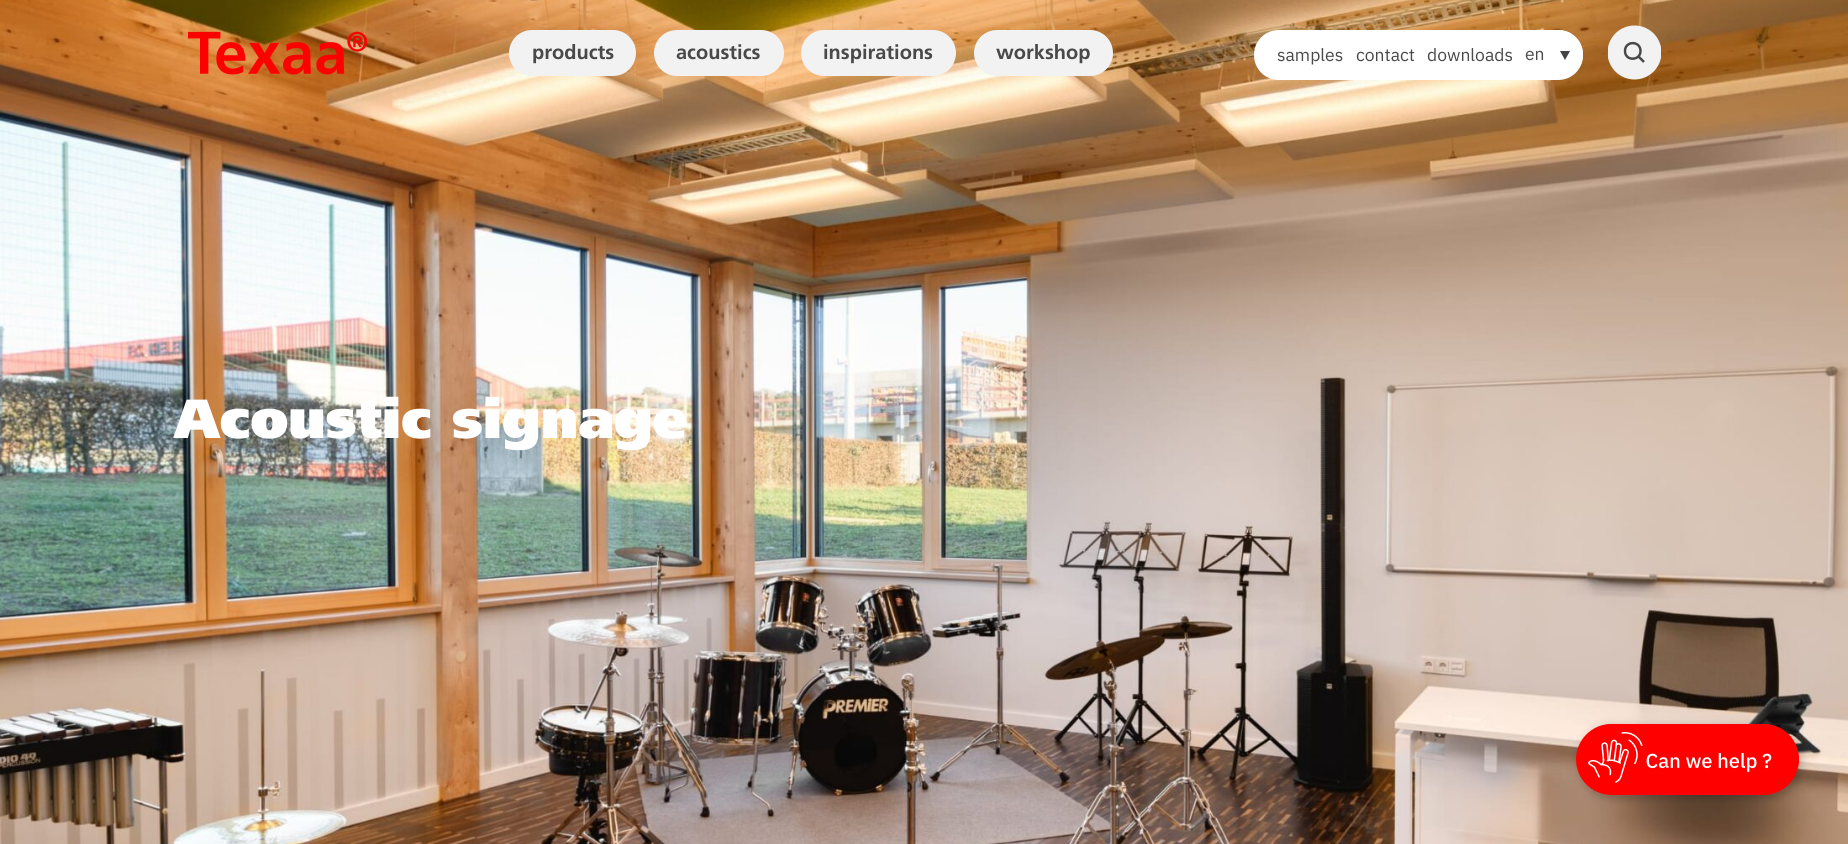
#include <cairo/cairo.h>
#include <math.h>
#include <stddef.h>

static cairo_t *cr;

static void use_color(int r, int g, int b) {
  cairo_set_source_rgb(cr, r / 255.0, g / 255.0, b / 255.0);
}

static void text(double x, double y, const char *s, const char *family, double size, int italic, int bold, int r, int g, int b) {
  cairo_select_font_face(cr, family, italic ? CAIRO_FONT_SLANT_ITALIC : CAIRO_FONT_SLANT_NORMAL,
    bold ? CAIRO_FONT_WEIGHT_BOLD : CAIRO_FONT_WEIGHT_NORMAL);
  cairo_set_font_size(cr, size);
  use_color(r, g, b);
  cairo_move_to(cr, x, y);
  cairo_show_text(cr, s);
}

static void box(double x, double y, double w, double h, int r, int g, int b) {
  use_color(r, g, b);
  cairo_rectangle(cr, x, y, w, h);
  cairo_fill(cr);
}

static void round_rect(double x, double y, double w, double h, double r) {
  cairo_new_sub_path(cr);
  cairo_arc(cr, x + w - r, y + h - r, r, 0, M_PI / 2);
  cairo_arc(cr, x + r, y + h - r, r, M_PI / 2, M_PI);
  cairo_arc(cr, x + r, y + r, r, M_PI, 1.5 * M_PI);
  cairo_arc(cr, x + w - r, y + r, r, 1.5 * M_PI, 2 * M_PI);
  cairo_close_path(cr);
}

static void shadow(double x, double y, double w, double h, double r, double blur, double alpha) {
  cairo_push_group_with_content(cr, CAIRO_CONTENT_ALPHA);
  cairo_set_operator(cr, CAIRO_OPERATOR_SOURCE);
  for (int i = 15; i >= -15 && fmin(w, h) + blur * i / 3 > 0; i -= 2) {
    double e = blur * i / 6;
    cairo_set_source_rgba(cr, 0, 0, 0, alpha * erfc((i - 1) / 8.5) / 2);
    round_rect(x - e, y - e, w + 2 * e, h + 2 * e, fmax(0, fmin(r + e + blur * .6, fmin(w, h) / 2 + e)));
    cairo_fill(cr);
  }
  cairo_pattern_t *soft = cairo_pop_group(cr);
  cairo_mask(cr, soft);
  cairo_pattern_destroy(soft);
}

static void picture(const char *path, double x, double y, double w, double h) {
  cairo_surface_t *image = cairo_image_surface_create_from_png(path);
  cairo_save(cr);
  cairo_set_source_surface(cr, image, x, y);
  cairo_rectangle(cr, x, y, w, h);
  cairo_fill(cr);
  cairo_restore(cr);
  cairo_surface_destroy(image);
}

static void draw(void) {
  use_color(255, 255, 255);
  cairo_paint(cr);
  picture("img_02.png", 0, 0, 1848, 844);
  picture("img_01.png", 188, 31, 180, 44);
  use_color(242, 242, 242);
  round_rect(509, 30, 127, 46, 23);
  cairo_fill(cr);
  round_rect(654, 30, 130, 46, 23);
  cairo_fill(cr);
  round_rect(801, 30, 155, 46, 23);
  cairo_fill(cr);
  round_rect(974, 30, 139, 46, 23);
  cairo_fill(cr);
  use_color(255, 255, 255);
  cairo_new_path(cr);
  cairo_move_to(cr, 1279, 30);
  cairo_line_to(cr, 1349, 30);
  cairo_line_to(cr, 1349, 80);
  cairo_line_to(cr, 1279, 80);
  cairo_curve_to(cr, 1265, 80, 1254, 69, 1254, 55);
  cairo_curve_to(cr, 1254, 41, 1265, 30, 1279, 30);
  cairo_close_path(cr);
  cairo_fill(cr);
  box(1349, 30, 164, 50, 255, 255, 255);
  cairo_new_path(cr);
  cairo_move_to(cr, 1513, 30);
  cairo_line_to(cr, 1558, 30);
  cairo_curve_to(cr, 1572, 30, 1583, 41, 1583, 55);
  cairo_curve_to(cr, 1583, 69, 1572, 80, 1558, 80);
  cairo_line_to(cr, 1513, 80);
  cairo_close_path(cr);
  cairo_fill(cr);
  cairo_new_path(cr);
  cairo_move_to(cr, 1513, 30);
  cairo_line_to(cr, 1558.5, 30);
  cairo_curve_to(cr, 1572, 30, 1583, 41, 1583, 54.5);
  cairo_curve_to(cr, 1583, 68, 1572, 79, 1558.5, 79);
  cairo_line_to(cr, 1513, 79);
  cairo_close_path(cr);
  cairo_fill(cr);
  use_color(68, 68, 68);
  cairo_new_path(cr);
  cairo_move_to(cr, 1560, 51);
  cairo_line_to(cr, 1570, 51);
  cairo_line_to(cr, 1565, 60);
  cairo_close_path(cr);
  cairo_fill(cr);
  cairo_save(cr);
  cairo_rectangle(cr, 1608, 25, 53, 55);
  cairo_clip(cr);
  use_color(242, 242, 242);
  cairo_arc(cr, 1634.5, 52.5, 27, 0, 2 * M_PI);
  cairo_fill(cr);
  cairo_restore(cr);
  cairo_new_path(cr);
  cairo_move_to(cr, 1640.5, 51);
  cairo_curve_to(cr, 1640.5, 61, 1625, 61.5, 1625, 51);
  cairo_curve_to(cr, 1625, 40.5, 1640.5, 40.5, 1640.5, 51);
  cairo_close_path(cr);
  cairo_move_to(cr, 1638.5, 56.5);
  cairo_line_to(cr, 1644, 62);
  use_color(73, 73, 73);
  cairo_set_line_width(cr, 2.5);
  cairo_stroke(cr);
  use_color(255, 0, 0);
  round_rect(1576, 724, 223, 71, 35.5);
  cairo_fill(cr);
  cairo_save(cr);
  cairo_set_fill_rule(cr, CAIRO_FILL_RULE_EVEN_ODD);
  cairo_new_path(cr);
  cairo_move_to(cr, 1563, 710);
  cairo_line_to(cr, 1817, 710);
  cairo_line_to(cr, 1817, 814);
  cairo_line_to(cr, 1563, 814);
  cairo_close_path(cr);
  cairo_move_to(cr, 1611.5, 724);
  cairo_line_to(cr, 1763.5, 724);
  cairo_curve_to(cr, 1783, 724, 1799, 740, 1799, 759.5);
  cairo_curve_to(cr, 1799, 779, 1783, 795, 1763.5, 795);
  cairo_line_to(cr, 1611.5, 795);
  cairo_curve_to(cr, 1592, 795, 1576, 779, 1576, 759.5);
  cairo_curve_to(cr, 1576, 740, 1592, 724, 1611.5, 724);
  cairo_close_path(cr);
  cairo_clip(cr);
  use_color(0, 0, 0);
  shadow(1579, 726, 222, 72, 36, 5, 0.25);
  cairo_restore(cr);
  picture("img_03.png", 1582, 724, 217, 65);
  text(532, 59, "products", "Frutiger", 20, 0, 1, 73, 73, 73);
  text(676, 59, "acoustics", "Frutiger", 20, 0, 1, 73, 73, 73);
  text(823, 59, "inspirations", "Frutiger", 20, 0, 1, 73, 73, 73);
  text(996, 59, "workshop", "Frutiger", 20, 0, 1, 73, 73, 73);
  text(1277, 61, "samples", "IBM Plex Sans", 17.5, 0, 0, 73, 73, 73);
  text(1356, 61, "contact", "IBM Plex Sans", 17.5, 0, 0, 73, 73, 73);
  text(1427, 61, "downloads", "IBM Plex Sans", 17.5, 0, 0, 73, 73, 73);
  text(1525, 60, "en", "IBM Plex Sans", 17.5, 0, 0, 73, 73, 73);
  text(174, 438, "Acoustic signage", "Frutiger Black", 55, 0, 0, 255, 255, 255);
}

int main(void) {
  cairo_surface_t *surface = cairo_image_surface_create(CAIRO_FORMAT_RGB24, 1848, 844);
  cr = cairo_create(surface);
  cairo_font_options_t *options = cairo_font_options_create();
  cairo_font_options_set_hint_metrics(options, CAIRO_HINT_METRICS_OFF);
  cairo_font_options_set_hint_style(options, CAIRO_HINT_STYLE_NONE);
  cairo_set_font_options(cr, options);
  cairo_set_miter_limit(cr, 4);
  draw();
  cairo_surface_write_to_png(surface, "out.png");
  cairo_font_options_destroy(options);
  cairo_destroy(cr);
  cairo_surface_destroy(surface);
  return 0;
}
